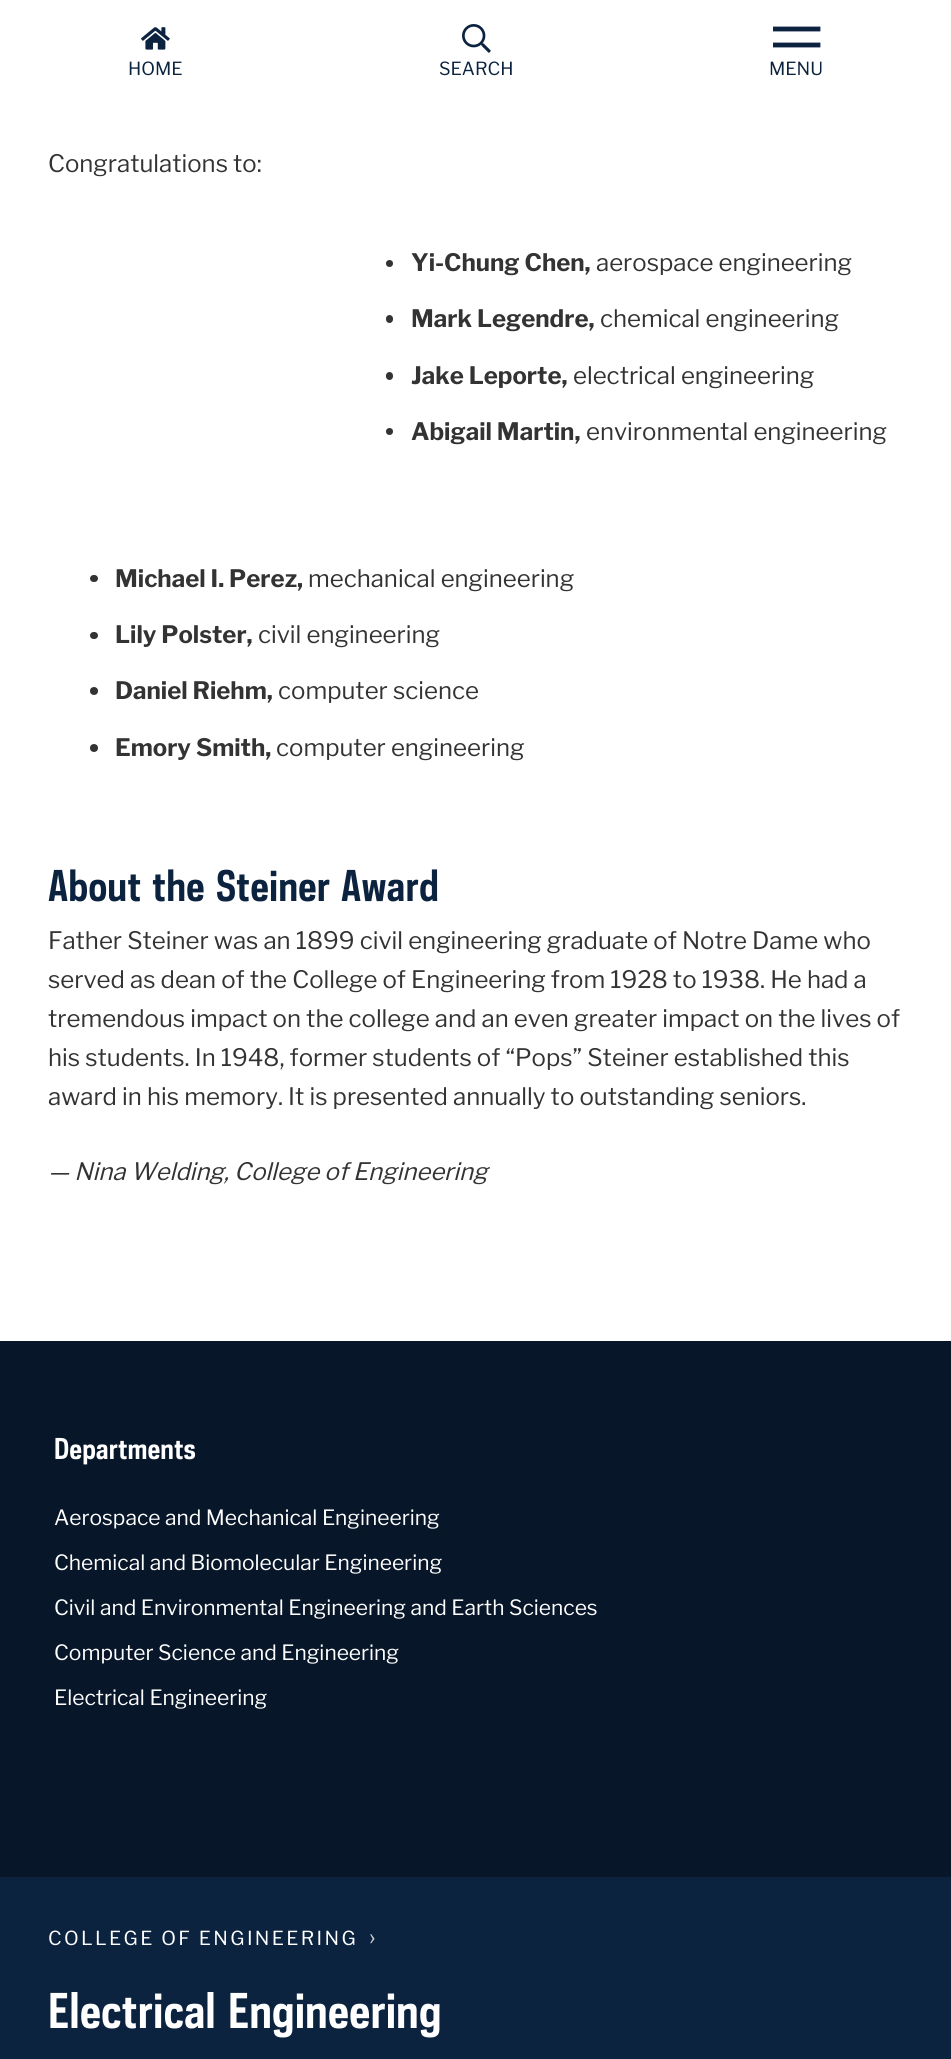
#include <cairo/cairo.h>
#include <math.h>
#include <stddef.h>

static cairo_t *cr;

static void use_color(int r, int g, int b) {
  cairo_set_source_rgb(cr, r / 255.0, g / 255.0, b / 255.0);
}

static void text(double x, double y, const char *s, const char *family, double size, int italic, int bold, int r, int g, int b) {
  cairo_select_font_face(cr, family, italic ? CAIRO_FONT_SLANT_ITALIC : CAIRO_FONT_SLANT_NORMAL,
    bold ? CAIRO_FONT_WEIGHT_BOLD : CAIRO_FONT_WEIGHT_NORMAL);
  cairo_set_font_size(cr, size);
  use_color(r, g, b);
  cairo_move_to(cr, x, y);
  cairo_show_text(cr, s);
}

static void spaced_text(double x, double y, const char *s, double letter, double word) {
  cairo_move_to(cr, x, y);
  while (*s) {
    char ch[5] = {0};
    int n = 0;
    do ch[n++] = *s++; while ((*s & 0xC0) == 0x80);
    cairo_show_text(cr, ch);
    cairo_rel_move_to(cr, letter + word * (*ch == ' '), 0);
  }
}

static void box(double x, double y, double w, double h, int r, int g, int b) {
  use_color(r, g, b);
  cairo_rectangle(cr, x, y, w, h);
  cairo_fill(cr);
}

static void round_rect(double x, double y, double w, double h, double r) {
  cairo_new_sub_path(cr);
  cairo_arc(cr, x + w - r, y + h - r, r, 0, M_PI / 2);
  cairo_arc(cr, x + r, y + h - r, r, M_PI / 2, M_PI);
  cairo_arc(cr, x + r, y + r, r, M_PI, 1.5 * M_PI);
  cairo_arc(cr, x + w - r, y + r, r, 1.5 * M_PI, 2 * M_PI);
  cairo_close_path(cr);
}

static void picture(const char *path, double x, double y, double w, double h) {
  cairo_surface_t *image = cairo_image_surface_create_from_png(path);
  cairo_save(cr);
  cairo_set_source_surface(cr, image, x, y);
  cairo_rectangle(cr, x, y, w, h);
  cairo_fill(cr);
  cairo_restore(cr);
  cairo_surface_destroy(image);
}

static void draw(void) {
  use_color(255, 255, 255);
  cairo_paint(cr);
  picture("img_01.png", 141, 27, 29, 23);
  picture("img_02.png", 462, 24, 29, 29);
  cairo_save(cr);
  cairo_rectangle(cr, 773, 24, 48, 48);
  cairo_clip(cr);
  cairo_new_path(cr);
  cairo_move_to(cr, 775, 29);
  cairo_line_to(cr, 818, 29);
  cairo_move_to(cr, 775, 45);
  cairo_line_to(cr, 818, 45);
  use_color(12, 35, 64);
  cairo_set_line_width(cr, 4.8);
  cairo_set_line_cap(cr, CAIRO_LINE_CAP_SQUARE);
  cairo_stroke(cr);
  cairo_restore(cr);
  use_color(51, 51, 51);
  cairo_arc(cr, 389.5, 263.5, 3.5, 0, 2 * M_PI);
  cairo_fill(cr);
  round_rect(386, 315, 7, 8, 3.5);
  cairo_fill(cr);
  round_rect(386, 372, 7, 8, 3.5);
  cairo_fill(cr);
  cairo_arc(cr, 389.5, 431.5, 3.5, 0, 2 * M_PI);
  cairo_fill(cr);
  round_rect(90, 575, 8, 7, 3.5);
  cairo_fill(cr);
  round_rect(90, 632, 8, 7, 3.5);
  cairo_fill(cr);
  cairo_arc(cr, 94, 691, 4, 0, 2 * M_PI);
  cairo_fill(cr);
  cairo_arc(cr, 94, 748, 4, 0, 2 * M_PI);
  cairo_fill(cr);
  box(0, 1341, 951, 536, 8, 22, 41);
  box(0, 1877, 951, 182, 12, 35, 64);
  text(128, 75, "HOME", "Libre Franklin", 18, 0, 0, 12, 35, 64);
  text(439, 75, "SEARCH", "Libre Franklin", 18, 0, 0, 12, 35, 64);
  text(769, 75, "MENU", "Libre Franklin", 18, 0, 0, 12, 35, 64);
  text(48, 172, "Congratulations to:", "Libre Franklin", 24, 0, 0, 51, 51, 51);
  text(411, 271, "Yi-Chung Chen,", "Libre Franklin", 24, 0, 1, 51, 51, 51);
  text(596, 271, "aerospace engineering", "Libre Franklin", 24, 0, 0, 51, 51, 51);
  text(411, 327, "Mark Legendre,", "Libre Franklin", 24, 0, 1, 51, 51, 51);
  text(600, 327, "chemical engineering", "Libre Franklin", 24, 0, 0, 51, 51, 51);
  text(411, 384, "Jake Leporte,", "Libre Franklin", 24, 0, 1, 51, 51, 51);
  text(573, 384, "electrical engineering", "Libre Franklin", 24, 0, 0, 51, 51, 51);
  text(411, 440, "Abigail Martin,", "Libre Franklin", 24, 0, 1, 51, 51, 51);
  text(586, 440, "environmental engineering", "Libre Franklin", 24, 0, 0, 51, 51, 51);
  text(115, 587, "Michael I. Perez,", "Libre Franklin", 24, 0, 1, 51, 51, 51);
  text(308, 587, "mechanical engineering", "Libre Franklin", 24, 0, 0, 51, 51, 51);
  text(115, 643, "Lily Polster,", "Libre Franklin", 24, 0, 1, 51, 51, 51);
  text(258, 643, "civil engineering", "Libre Franklin", 24, 0, 0, 51, 51, 51);
  text(115, 699, "Daniel Riehm,", "Libre Franklin", 24, 0, 1, 51, 51, 51);
  text(278, 699, "computer science", "Libre Franklin", 24, 0, 0, 51, 51, 51);
  text(115, 756, "Emory Smith,", "Libre Franklin", 24, 0, 1, 51, 51, 51);
  text(276, 756, "computer engineering", "Libre Franklin", 24, 0, 0, 51, 51, 51);
  text(48, 901, "About", "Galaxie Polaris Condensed", 39.5, 0, 1, 12, 35, 64);
  text(152, 901, "the", "Galaxie Polaris Condensed", 39.5, 0, 1, 12, 35, 64);
  text(216, 901, "Steiner", "Galaxie Polaris Condensed", 39.5, 0, 1, 12, 35, 64);
  text(341, 901, "Award", "Galaxie Polaris Condensed", 39.5, 0, 1, 12, 35, 64);
  text(48, 949, "Father Steiner was an 1899 civil engineering graduate of Notre Dame who", "Libre Franklin", 24, 0, 0, 51, 51, 51);
  text(48, 988, "served as dean of the College of Engineering from 1928 to 1938. He had a", "Libre Franklin", 24, 0, 0, 51, 51, 51);
  text(48, 1027, "tremendous impact on the college and an even greater impact on the lives of", "Libre Franklin", 24, 0, 0, 51, 51, 51);
  text(48, 1066, "his students. In 1948, former students of “Pops” Steiner established this", "Libre Franklin", 24, 0, 0, 51, 51, 51);
  text(48, 1105, "award in his memory. It is presented annually to outstanding seniors.", "Libre Franklin", 24, 0, 0, 51, 51, 51);
  text(48, 1180, "— Nina Welding, College of Engineering", "Libre Franklin", 24, 1, 0, 51, 51, 51);
  text(54, 1459, "Departments", "Galaxie Polaris Condensed", 27, 0, 1, 255, 255, 255);
  text(54, 1525, "Aerospace and Mechanical Engineering", "Libre Franklin", 21, 0, 0, 255, 255, 255);
  text(54, 1570, "Chemical and Biomolecular Engineering", "Libre Franklin", 21, 0, 0, 255, 255, 255);
  text(54, 1615, "Civil and Environmental Engineering and Earth Sciences", "Libre Franklin", 21, 0, 0, 255, 255, 255);
  text(54, 1660, "Computer Science and Engineering", "Libre Franklin", 21, 0, 0, 255, 255, 255);
  text(54, 1705, "Electrical Engineering", "Libre Franklin", 21, 0, 0, 255, 255, 255);
  cairo_set_font_size(cr, 19.25);
  spaced_text(48, 1945, "COLLEGE OF ENGINEERING", 2.4, 0);
  cairo_set_font_size(cr, 24);
  use_color(210, 210, 210);
  spaced_text(369, 1945, "›", 2.4, 0);
  text(48, 2028, "Electrical", "Galaxie Polaris Condensed", 45, 0, 1, 255, 255, 255);
  text(228, 2028, "Engineering", "Galaxie Polaris Condensed", 45, 0, 1, 255, 255, 255);
}

int main(void) {
  cairo_surface_t *surface = cairo_image_surface_create(CAIRO_FORMAT_RGB24, 951, 2059);
  cr = cairo_create(surface);
  cairo_font_options_t *options = cairo_font_options_create();
  cairo_font_options_set_hint_metrics(options, CAIRO_HINT_METRICS_OFF);
  cairo_font_options_set_hint_style(options, CAIRO_HINT_STYLE_NONE);
  cairo_set_font_options(cr, options);
  cairo_set_miter_limit(cr, 4);
  draw();
  cairo_surface_write_to_png(surface, "out.png");
  cairo_font_options_destroy(options);
  cairo_destroy(cr);
  cairo_surface_destroy(surface);
  return 0;
}
